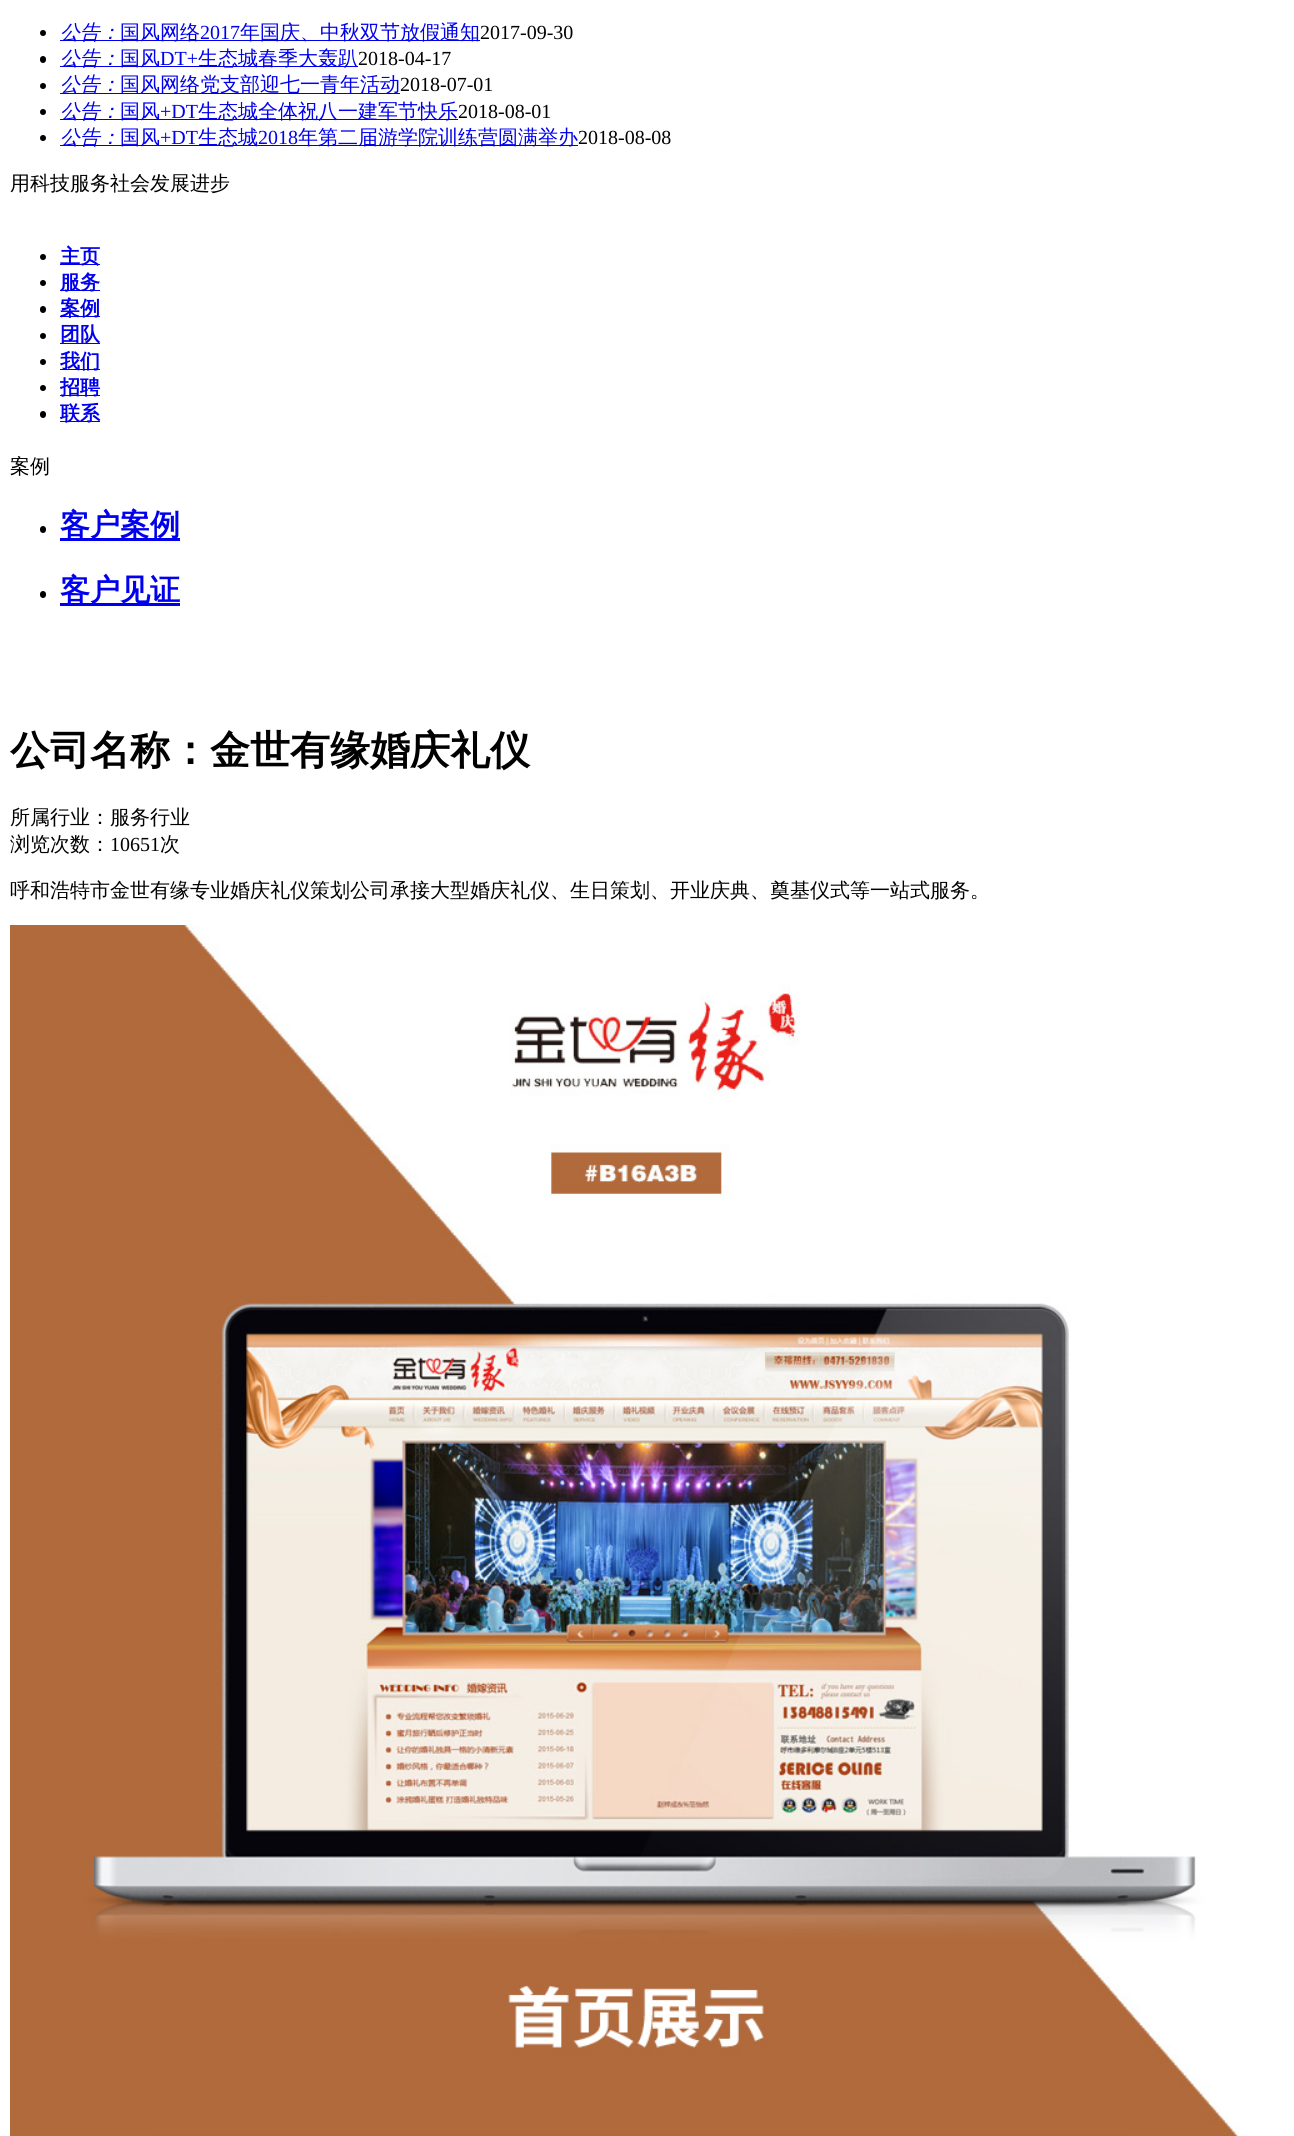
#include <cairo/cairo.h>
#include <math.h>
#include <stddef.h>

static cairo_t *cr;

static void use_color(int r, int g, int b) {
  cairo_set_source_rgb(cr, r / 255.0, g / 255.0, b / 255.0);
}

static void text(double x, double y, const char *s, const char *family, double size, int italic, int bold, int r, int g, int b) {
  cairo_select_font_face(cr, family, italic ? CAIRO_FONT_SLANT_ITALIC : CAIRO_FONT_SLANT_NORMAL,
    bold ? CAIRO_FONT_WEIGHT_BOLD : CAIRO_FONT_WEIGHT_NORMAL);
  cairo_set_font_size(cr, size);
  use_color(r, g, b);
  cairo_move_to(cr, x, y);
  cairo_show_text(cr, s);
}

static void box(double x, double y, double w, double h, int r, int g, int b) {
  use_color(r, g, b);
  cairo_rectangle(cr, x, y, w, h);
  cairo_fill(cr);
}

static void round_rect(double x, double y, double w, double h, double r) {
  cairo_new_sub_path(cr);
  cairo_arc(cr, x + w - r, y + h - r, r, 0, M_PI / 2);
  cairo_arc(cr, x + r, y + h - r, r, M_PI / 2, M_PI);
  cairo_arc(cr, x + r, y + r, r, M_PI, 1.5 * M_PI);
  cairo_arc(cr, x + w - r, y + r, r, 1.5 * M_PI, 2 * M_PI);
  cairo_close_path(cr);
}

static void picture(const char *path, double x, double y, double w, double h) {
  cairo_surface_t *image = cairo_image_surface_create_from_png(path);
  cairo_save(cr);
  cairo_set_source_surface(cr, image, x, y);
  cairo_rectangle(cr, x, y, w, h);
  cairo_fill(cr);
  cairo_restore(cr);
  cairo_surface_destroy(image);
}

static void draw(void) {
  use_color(255, 255, 255);
  cairo_paint(cr);
  use_color(0, 0, 0);
  cairo_arc(cr, 43, 33, 3, 0, 2 * M_PI);
  cairo_fill(cr);
  box(60, 40, 420, 1, 0, 0, 238);
  use_color(0, 0, 0);
  round_rect(40, 56, 6, 7, 3);
  cairo_fill(cr);
  box(60, 66, 298, 1, 0, 0, 238);
  use_color(0, 0, 0);
  cairo_arc(cr, 43, 86, 3, 0, 2 * M_PI);
  cairo_fill(cr);
  box(60, 93, 340, 1, 0, 0, 238);
  use_color(0, 0, 0);
  cairo_arc(cr, 43, 112, 3, 0, 2 * M_PI);
  cairo_fill(cr);
  box(60, 119, 398, 1, 0, 0, 238);
  use_color(0, 0, 0);
  cairo_arc(cr, 43, 138, 3, 0, 2 * M_PI);
  cairo_fill(cr);
  box(60, 145, 518, 1, 0, 0, 238);
  use_color(0, 0, 0);
  cairo_arc(cr, 43, 257, 3, 0, 2 * M_PI);
  cairo_fill(cr);
  box(60, 264, 40, 1, 0, 0, 238);
  use_color(0, 0, 0);
  cairo_arc(cr, 43, 283, 3, 0, 2 * M_PI);
  cairo_fill(cr);
  box(60, 290, 40, 1, 0, 0, 238);
  use_color(0, 0, 0);
  round_rect(40, 306, 6, 7, 3);
  cairo_fill(cr);
  box(60, 316, 40, 1, 0, 0, 238);
  use_color(0, 0, 0);
  cairo_arc(cr, 43, 336, 3, 0, 2 * M_PI);
  cairo_fill(cr);
  box(60, 343, 40, 1, 0, 0, 238);
  use_color(0, 0, 0);
  cairo_arc(cr, 43, 362, 3, 0, 2 * M_PI);
  cairo_fill(cr);
  box(60, 369, 40, 1, 0, 0, 238);
  use_color(0, 0, 0);
  cairo_arc(cr, 43, 388, 3, 0, 2 * M_PI);
  cairo_fill(cr);
  box(60, 395, 40, 1, 0, 0, 238);
  use_color(0, 0, 0);
  round_rect(40, 411, 6, 7, 3);
  cairo_fill(cr);
  box(60, 421, 40, 1, 0, 0, 238);
  use_color(0, 0, 0);
  round_rect(40, 526, 6, 7, 3);
  cairo_fill(cr);
  box(60, 538, 120, 3, 0, 0, 238);
  use_color(0, 0, 0);
  round_rect(40, 591, 6, 7, 3);
  cairo_fill(cr);
  box(60, 603, 120, 3, 0, 0, 238);
  picture("img_01.png", 10, 925, 1230, 1211);
  text(60, 39, "公告：", "WenQuanYi Zen Hei Medium", 20, 1, 0, 0, 0, 238);
  text(120, 39, "国风网络", "WenQuanYi Zen Hei Medium", 20, 0, 0, 0, 0, 238);
  text(200, 39, "2017", "Liberation Serif", 20, 0, 0, 0, 0, 238);
  text(240, 39, "年国庆、中秋双节放假通知", "WenQuanYi Zen Hei Medium", 20, 0, 0, 0, 0, 238);
  text(480, 39, "2017-09-30", "Liberation Serif", 20, 0, 0, 0, 0, 0);
  text(60, 65, "公告：", "WenQuanYi Zen Hei Medium", 20, 1, 0, 0, 0, 238);
  text(120, 65, "国风", "WenQuanYi Zen Hei Medium", 20, 0, 0, 0, 0, 238);
  text(160, 65, "DT+", "Liberation Serif", 20, 0, 0, 0, 0, 238);
  text(198, 65, "生态城春季大轰趴", "WenQuanYi Zen Hei Medium", 20, 0, 0, 0, 0, 238);
  text(358, 65, "2018-04-17", "Liberation Serif", 20, 0, 0, 0, 0, 0);
  text(60, 91, "公告：", "WenQuanYi Zen Hei Medium", 20, 1, 0, 0, 0, 238);
  text(120, 91, "国风网络党支部迎七一青年活动", "WenQuanYi Zen Hei Medium", 20, 0, 0, 0, 0, 238);
  text(400, 91, "2018-07-01", "Liberation Serif", 20, 0, 0, 0, 0, 0);
  text(60, 118, "公告：", "WenQuanYi Zen Hei Medium", 20, 1, 0, 0, 0, 238);
  text(120, 118, "国风", "WenQuanYi Zen Hei Medium", 20, 0, 0, 0, 0, 238);
  text(160, 118, "+DT", "Liberation Serif", 20, 0, 0, 0, 0, 238);
  text(198, 118, "生态城全体祝八一建军节快乐", "WenQuanYi Zen Hei Medium", 20, 0, 0, 0, 0, 238);
  text(458, 118, "2018-08-01", "Liberation Serif", 20, 0, 0, 0, 0, 0);
  text(60, 144, "公告：", "WenQuanYi Zen Hei Medium", 20, 1, 0, 0, 0, 238);
  text(120, 144, "国风", "WenQuanYi Zen Hei Medium", 20, 0, 0, 0, 0, 238);
  text(160, 144, "+DT", "Liberation Serif", 20, 0, 0, 0, 0, 238);
  text(198, 144, "生态城", "WenQuanYi Zen Hei Medium", 20, 0, 0, 0, 0, 238);
  text(258, 144, "2018", "Liberation Serif", 20, 0, 0, 0, 0, 238);
  text(298, 144, "年第二届游学院训练营圆满举办", "WenQuanYi Zen Hei Medium", 20, 0, 0, 0, 0, 238);
  text(578, 144, "2018-08-08", "Liberation Serif", 20, 0, 0, 0, 0, 0);
  text(10, 190, "用科技服务社会发展进步", "WenQuanYi Zen Hei Medium", 20, 0, 0, 0, 0, 0);
  text(60, 263, "主页", "WenQuanYi Zen Hei", 20, 0, 1, 0, 0, 238);
  text(60, 289, "服务", "WenQuanYi Zen Hei", 20, 0, 1, 0, 0, 238);
  text(60, 315, "案例", "WenQuanYi Zen Hei", 20, 0, 1, 0, 0, 238);
  text(60, 341, "团队", "WenQuanYi Zen Hei", 20, 0, 1, 0, 0, 238);
  text(60, 368, "我们", "WenQuanYi Zen Hei", 20, 0, 1, 0, 0, 238);
  text(60, 394, "招聘", "WenQuanYi Zen Hei", 20, 0, 1, 0, 0, 238);
  text(60, 420, "联系", "WenQuanYi Zen Hei", 20, 0, 1, 0, 0, 238);
  text(10, 473, "案例", "WenQuanYi Zen Hei Medium", 20, 0, 0, 0, 0, 0);
  text(60, 535, "客户案例", "WenQuanYi Zen Hei", 30, 0, 1, 0, 0, 238);
  text(60, 600, "客户见证", "WenQuanYi Zen Hei", 30, 0, 1, 0, 0, 238);
  text(10, 764, "公司名称：金世有缘婚庆礼仪", "WenQuanYi Zen Hei", 40, 0, 1, 0, 0, 0);
  text(10, 824, "所属行业：服务行业", "WenQuanYi Zen Hei Medium", 20, 0, 0, 0, 0, 0);
  text(10, 851, "浏览次数：", "WenQuanYi Zen Hei Medium", 20, 0, 0, 0, 0, 0);
  text(110, 851, "10651", "Liberation Serif", 20, 0, 0, 0, 0, 0);
  text(160, 851, "次", "WenQuanYi Zen Hei Medium", 20, 0, 0, 0, 0, 0);
  text(10, 897, "呼和浩特市金世有缘专业婚庆礼仪策划公司承接大型婚庆礼仪、生日策划、开业庆典、奠基仪式等一站式服务。", "WenQuanYi Zen Hei Medium", 20, 0, 0, 0, 0, 0);
}

int main(void) {
  cairo_surface_t *surface = cairo_image_surface_create(CAIRO_FORMAT_RGB24, 1294, 2136);
  cr = cairo_create(surface);
  cairo_font_options_t *options = cairo_font_options_create();
  cairo_font_options_set_hint_metrics(options, CAIRO_HINT_METRICS_OFF);
  cairo_font_options_set_hint_style(options, CAIRO_HINT_STYLE_NONE);
  cairo_set_font_options(cr, options);
  cairo_set_miter_limit(cr, 4);
  draw();
  cairo_surface_write_to_png(surface, "out.png");
  cairo_font_options_destroy(options);
  cairo_destroy(cr);
  cairo_surface_destroy(surface);
  return 0;
}
